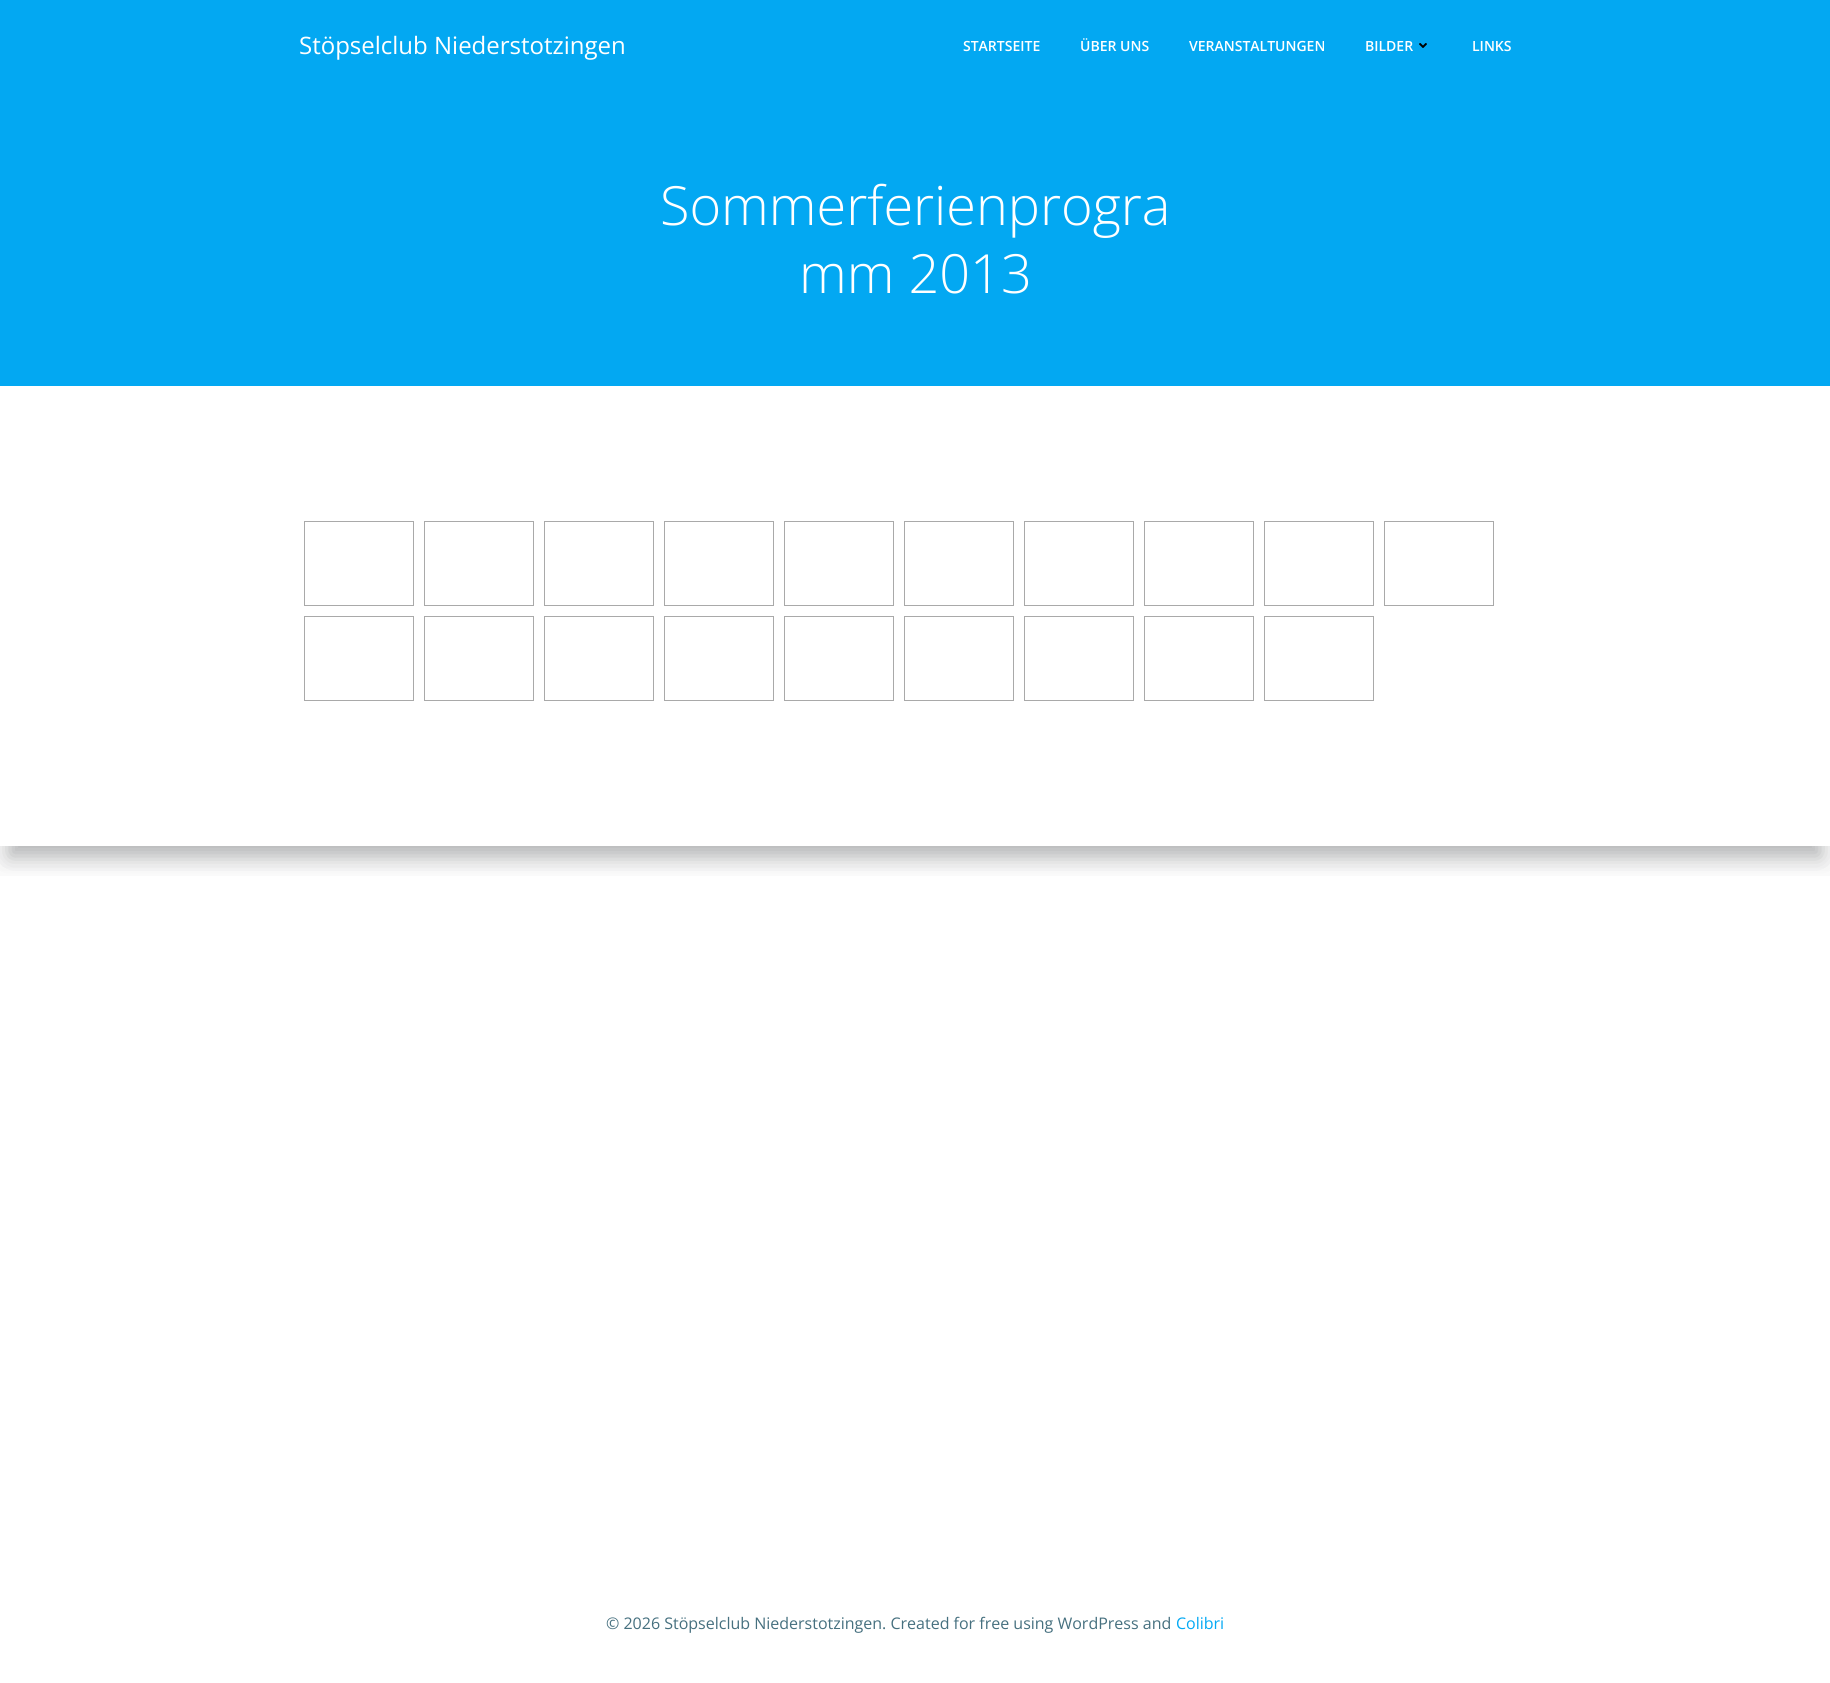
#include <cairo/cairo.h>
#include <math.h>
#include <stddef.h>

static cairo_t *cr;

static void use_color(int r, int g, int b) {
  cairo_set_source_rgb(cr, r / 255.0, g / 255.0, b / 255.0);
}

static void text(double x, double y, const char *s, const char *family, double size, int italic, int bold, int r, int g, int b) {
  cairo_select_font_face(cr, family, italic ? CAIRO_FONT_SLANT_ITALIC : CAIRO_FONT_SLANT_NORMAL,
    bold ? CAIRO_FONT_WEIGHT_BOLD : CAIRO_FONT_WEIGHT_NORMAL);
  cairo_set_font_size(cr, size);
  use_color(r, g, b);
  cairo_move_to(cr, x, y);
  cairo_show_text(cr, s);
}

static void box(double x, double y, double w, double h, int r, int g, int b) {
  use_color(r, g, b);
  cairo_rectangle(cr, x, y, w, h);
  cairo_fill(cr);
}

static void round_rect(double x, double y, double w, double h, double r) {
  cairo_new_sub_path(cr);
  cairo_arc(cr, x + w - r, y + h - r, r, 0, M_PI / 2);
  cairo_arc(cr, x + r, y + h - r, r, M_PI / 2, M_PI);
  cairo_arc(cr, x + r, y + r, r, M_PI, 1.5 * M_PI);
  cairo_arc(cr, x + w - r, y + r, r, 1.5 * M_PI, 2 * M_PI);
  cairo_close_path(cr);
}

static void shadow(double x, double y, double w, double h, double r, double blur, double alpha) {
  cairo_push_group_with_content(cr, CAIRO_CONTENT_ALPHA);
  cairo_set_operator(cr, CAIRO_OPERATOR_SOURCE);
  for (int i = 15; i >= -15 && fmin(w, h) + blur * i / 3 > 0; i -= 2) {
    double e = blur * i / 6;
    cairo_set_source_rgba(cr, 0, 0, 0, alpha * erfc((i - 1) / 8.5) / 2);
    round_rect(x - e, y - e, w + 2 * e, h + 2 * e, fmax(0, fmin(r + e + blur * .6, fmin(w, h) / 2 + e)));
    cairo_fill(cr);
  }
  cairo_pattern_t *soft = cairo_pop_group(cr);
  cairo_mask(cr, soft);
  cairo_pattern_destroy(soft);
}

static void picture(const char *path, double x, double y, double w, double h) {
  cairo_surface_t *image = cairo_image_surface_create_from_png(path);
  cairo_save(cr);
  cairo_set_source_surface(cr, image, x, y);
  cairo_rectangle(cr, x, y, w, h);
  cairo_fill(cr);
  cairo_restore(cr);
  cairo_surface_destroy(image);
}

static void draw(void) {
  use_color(255, 255, 255);
  cairo_paint(cr);
  cairo_save(cr);
  cairo_rectangle(cr, 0, 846, 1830, 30);
  cairo_clip(cr);
  use_color(0, 0, 0);
  shadow(0, 406, 1830, 460, 0, 15, 0.08);
  cairo_restore(cr);
  cairo_save(cr);
  cairo_rectangle(cr, 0, 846, 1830, 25);
  cairo_clip(cr);
  use_color(49, 52, 57);
  shadow(10, 416, 1810, 440, 0, 10, 0.3);
  cairo_restore(cr);
  box(0, 0, 1830, 386, 3, 168, 242);
  picture("img_01.png", 1419, 43, 8, 5);
  cairo_rectangle(cr, 304.5, 521.5, 109, 84);
  use_color(169, 169, 169);
  cairo_set_line_width(cr, 1);
  cairo_stroke(cr);
  cairo_rectangle(cr, 424.5, 521.5, 109, 84);
  cairo_stroke(cr);
  cairo_rectangle(cr, 544.5, 521.5, 109, 84);
  cairo_stroke(cr);
  cairo_rectangle(cr, 664.5, 521.5, 109, 84);
  cairo_stroke(cr);
  cairo_rectangle(cr, 784.5, 521.5, 109, 84);
  cairo_stroke(cr);
  cairo_rectangle(cr, 904.5, 521.5, 109, 84);
  cairo_stroke(cr);
  cairo_rectangle(cr, 1024.5, 521.5, 109, 84);
  cairo_stroke(cr);
  cairo_rectangle(cr, 1144.5, 521.5, 109, 84);
  cairo_stroke(cr);
  cairo_rectangle(cr, 1264.5, 521.5, 109, 84);
  cairo_stroke(cr);
  cairo_rectangle(cr, 1384.5, 521.5, 109, 84);
  cairo_stroke(cr);
  cairo_rectangle(cr, 304.5, 616.5, 109, 84);
  cairo_stroke(cr);
  cairo_rectangle(cr, 424.5, 616.5, 109, 84);
  cairo_stroke(cr);
  cairo_rectangle(cr, 544.5, 616.5, 109, 84);
  cairo_stroke(cr);
  cairo_rectangle(cr, 664.5, 616.5, 109, 84);
  cairo_stroke(cr);
  cairo_rectangle(cr, 784.5, 616.5, 109, 84);
  cairo_stroke(cr);
  cairo_rectangle(cr, 904.5, 616.5, 109, 84);
  cairo_stroke(cr);
  cairo_rectangle(cr, 1024.5, 616.5, 109, 84);
  cairo_stroke(cr);
  cairo_rectangle(cr, 1144.5, 616.5, 109, 84);
  cairo_stroke(cr);
  cairo_rectangle(cr, 1264.5, 616.5, 109, 84);
  cairo_stroke(cr);
  text(299, 54, "Stöpselclub Niederstotzingen", "Open Sans", 24, 0, 0, 255, 255, 255);
  text(963, 51, "STARTSEITE", "Open Sans SemiBold", 14, 0, 0, 255, 255, 255);
  text(1080, 51, "ÜBER UNS", "Open Sans SemiBold", 14, 0, 0, 255, 255, 255);
  text(1189, 51, "VERANSTALTUNGEN", "Open Sans SemiBold", 14, 0, 0, 255, 255, 255);
  text(1365, 51, "BILDER", "Open Sans SemiBold", 14, 0, 0, 255, 255, 255);
  text(1472, 51, "LINKS", "Open Sans SemiBold", 14, 0, 0, 255, 255, 255);
  text(660, 225, "Sommerferienprogra", "Open Sans Light", 54, 0, 0, 255, 255, 255);
  text(799, 293, "mm 2013", "Open Sans Light", 54, 0, 0, 255, 255, 255);
  text(606, 1629, "© 2026 Stöpselclub Niederstotzingen. Created for free using WordPress and", "Open Sans", 16, 0, 0, 70, 112, 127);
  text(1176, 1629, "Colibri", "Open Sans", 16, 0, 0, 3, 169, 244);
}

int main(void) {
  cairo_surface_t *surface = cairo_image_surface_create(CAIRO_FORMAT_RGB24, 1830, 1683);
  cr = cairo_create(surface);
  cairo_font_options_t *options = cairo_font_options_create();
  cairo_font_options_set_hint_metrics(options, CAIRO_HINT_METRICS_OFF);
  cairo_font_options_set_hint_style(options, CAIRO_HINT_STYLE_NONE);
  cairo_set_font_options(cr, options);
  cairo_set_miter_limit(cr, 4);
  draw();
  cairo_surface_write_to_png(surface, "out.png");
  cairo_font_options_destroy(options);
  cairo_destroy(cr);
  cairo_surface_destroy(surface);
  return 0;
}
